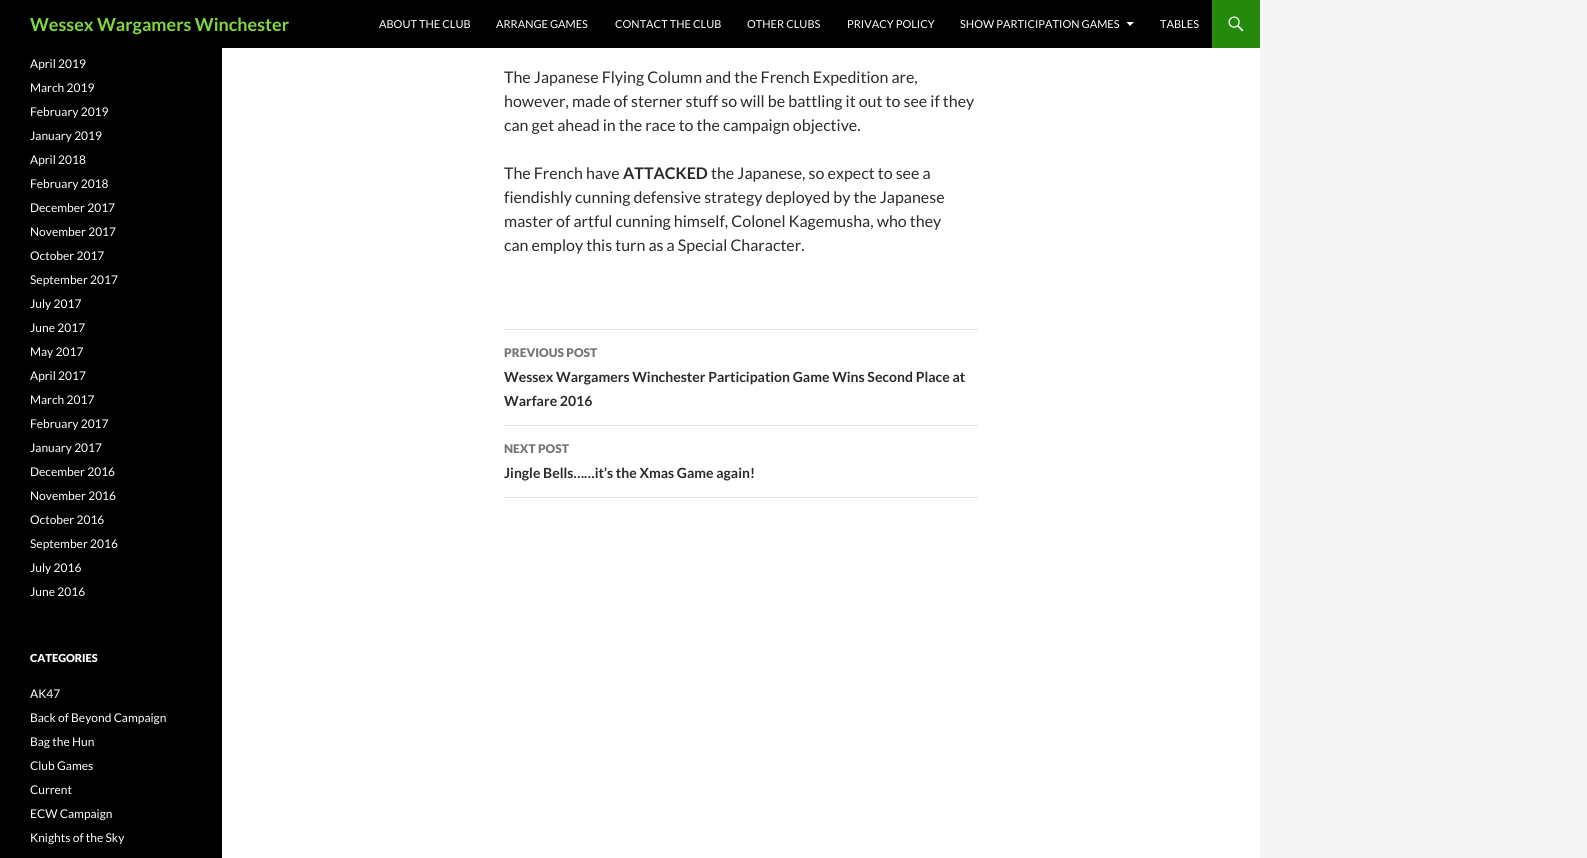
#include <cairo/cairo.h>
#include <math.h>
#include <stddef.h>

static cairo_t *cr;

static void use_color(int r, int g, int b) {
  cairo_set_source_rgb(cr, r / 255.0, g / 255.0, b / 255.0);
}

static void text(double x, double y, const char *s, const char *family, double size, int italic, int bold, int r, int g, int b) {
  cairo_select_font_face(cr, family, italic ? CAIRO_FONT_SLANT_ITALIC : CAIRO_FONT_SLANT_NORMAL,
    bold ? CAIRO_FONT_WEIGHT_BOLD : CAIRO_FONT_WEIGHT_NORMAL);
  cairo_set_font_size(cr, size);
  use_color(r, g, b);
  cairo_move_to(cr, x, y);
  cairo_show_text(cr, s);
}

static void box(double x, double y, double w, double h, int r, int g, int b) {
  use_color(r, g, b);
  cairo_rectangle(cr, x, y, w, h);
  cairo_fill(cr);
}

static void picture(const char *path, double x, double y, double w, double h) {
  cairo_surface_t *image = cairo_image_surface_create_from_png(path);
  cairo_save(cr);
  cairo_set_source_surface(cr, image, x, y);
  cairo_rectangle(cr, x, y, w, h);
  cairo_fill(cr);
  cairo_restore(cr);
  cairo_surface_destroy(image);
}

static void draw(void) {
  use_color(245, 245, 245);
  cairo_paint(cr);
  box(222, 48, 1038, 810, 255, 255, 255);
  box(0, 0, 1212, 48, 0, 0, 0);
  use_color(255, 255, 255);
  cairo_new_path(cr);
  cairo_move_to(cr, 1126.5, 22);
  cairo_line_to(cr, 1130, 26);
  cairo_line_to(cr, 1134, 22);
  cairo_close_path(cr);
  cairo_fill(cr);
  box(1212, 0, 48, 48, 36, 137, 13);
  picture("img_01.png", 1228, 16, 16, 16);
  box(0, 48, 222, 810, 0, 0, 0);
  box(504, 329, 474, 1, 230, 230, 230);
  box(504, 425, 474, 1, 230, 230, 230);
  box(504, 497, 474, 1, 230, 230, 230);
  text(30, 31, "Wessex Wargamers Winchester", "Lato", 18, 0, 1, 129, 215, 66);
  text(379, 28, "ABOUT THE CLUB", "Lato", 11, 0, 0, 255, 255, 255);
  text(496, 28, "ARRANGE GAMES", "Lato", 11, 0, 0, 255, 255, 255);
  text(615, 28, "CONTACT THE CLUB", "Lato", 11, 0, 0, 255, 255, 255);
  text(747, 28, "OTHER CLUBS", "Lato", 11, 0, 0, 255, 255, 255);
  text(847, 28, "PRIVACY POLICY", "Lato", 11, 0, 0, 255, 255, 255);
  text(960, 28, "SHOW PARTICIPATION GAMES", "Lato", 11, 0, 0, 255, 255, 255);
  text(1160, 28, "TABLES", "Lato", 11, 0, 0, 255, 255, 255);
  text(30, 68, "April 2019", "Lato", 12, 0, 0, 255, 255, 255);
  text(30, 92, "March 2019", "Lato", 12, 0, 0, 255, 255, 255);
  text(30, 116, "February 2019", "Lato", 12, 0, 0, 255, 255, 255);
  text(30, 140, "January 2019", "Lato", 12, 0, 0, 255, 255, 255);
  text(30, 164, "April 2018", "Lato", 12, 0, 0, 255, 255, 255);
  text(30, 188, "February 2018", "Lato", 12, 0, 0, 255, 255, 255);
  text(30, 212, "December 2017", "Lato", 12, 0, 0, 255, 255, 255);
  text(30, 236, "November 2017", "Lato", 12, 0, 0, 255, 255, 255);
  text(30, 260, "October 2017", "Lato", 12, 0, 0, 255, 255, 255);
  text(30, 284, "September 2017", "Lato", 12, 0, 0, 255, 255, 255);
  text(30, 308, "July 2017", "Lato", 12, 0, 0, 255, 255, 255);
  text(30, 332, "June 2017", "Lato", 12, 0, 0, 255, 255, 255);
  text(30, 356, "May 2017", "Lato", 12, 0, 0, 255, 255, 255);
  text(30, 380, "April 2017", "Lato", 12, 0, 0, 255, 255, 255);
  text(30, 404, "March 2017", "Lato", 12, 0, 0, 255, 255, 255);
  text(30, 428, "February 2017", "Lato", 12, 0, 0, 255, 255, 255);
  text(30, 452, "January 2017", "Lato", 12, 0, 0, 255, 255, 255);
  text(30, 476, "December 2016", "Lato", 12, 0, 0, 255, 255, 255);
  text(30, 500, "November 2016", "Lato", 12, 0, 0, 255, 255, 255);
  text(30, 524, "October 2016", "Lato", 12, 0, 0, 255, 255, 255);
  text(30, 548, "September 2016", "Lato", 12, 0, 0, 255, 255, 255);
  text(30, 572, "July 2016", "Lato", 12, 0, 0, 255, 255, 255);
  text(30, 596, "June 2016", "Lato", 12, 0, 0, 255, 255, 255);
  text(30, 662, "CATEGORIES", "Lato Black", 11, 0, 0, 255, 255, 255);
  text(30, 698, "AK47", "Lato", 12, 0, 0, 255, 255, 255);
  text(30, 722, "Back of Beyond Campaign", "Lato", 12, 0, 0, 255, 255, 255);
  text(30, 746, "Bag the Hun", "Lato", 12, 0, 0, 255, 255, 255);
  text(30, 770, "Club Games", "Lato", 12, 0, 0, 255, 255, 255);
  text(30, 794, "Current", "Lato", 12, 0, 0, 255, 255, 255);
  text(30, 818, "ECW Campaign", "Lato", 12, 0, 0, 255, 255, 255);
  text(30, 842, "Knights of the Sky", "Lato", 12, 0, 0, 255, 255, 255);
  text(504, 83, "The Japanese Flying Column and the French Expedition are,", "Lato", 16, 0, 0, 43, 43, 43);
  text(504, 107, "however, made of sterner stuff so will be battling it out to see if they", "Lato", 16, 0, 0, 43, 43, 43);
  text(504, 131, "can get ahead in the race to the campaign objective.", "Lato", 16, 0, 0, 43, 43, 43);
  text(504, 179, "The French have", "Lato", 16, 0, 0, 43, 43, 43);
  text(623, 179, "ATTACKED", "Lato", 16, 0, 1, 43, 43, 43);
  text(711, 179, "the Japanese, so expect to see a", "Lato", 16, 0, 0, 43, 43, 43);
  text(504, 203, "fiendishly cunning defensive strategy deployed by the Japanese", "Lato", 16, 0, 0, 43, 43, 43);
  text(504, 227, "master of artful cunning himself, Colonel Kagemusha, who they", "Lato", 16, 0, 0, 43, 43, 43);
  text(504, 251, "can employ this turn as a Special Character.", "Lato", 16, 0, 0, 43, 43, 43);
  text(504, 357, "PREVIOUS POST", "Lato Black", 12, 0, 0, 118, 118, 118);
  text(504, 382, "Wessex Wargamers Winchester Participation Game Wins Second Place at", "Lato", 14, 0, 1, 43, 43, 43);
  text(504, 406, "Warfare 2016", "Lato", 14, 0, 1, 43, 43, 43);
  text(504, 453, "NEXT POST", "Lato Black", 12, 0, 0, 118, 118, 118);
  text(504, 478, "Jingle Bells……it’s the Xmas Game again!", "Lato", 14, 0, 1, 43, 43, 43);
}

int main(void) {
  cairo_surface_t *surface = cairo_image_surface_create(CAIRO_FORMAT_RGB24, 1587, 858);
  cr = cairo_create(surface);
  cairo_font_options_t *options = cairo_font_options_create();
  cairo_font_options_set_hint_metrics(options, CAIRO_HINT_METRICS_OFF);
  cairo_font_options_set_hint_style(options, CAIRO_HINT_STYLE_NONE);
  cairo_set_font_options(cr, options);
  cairo_set_miter_limit(cr, 4);
  draw();
  cairo_surface_write_to_png(surface, "out.png");
  cairo_font_options_destroy(options);
  cairo_destroy(cr);
  cairo_surface_destroy(surface);
  return 0;
}
